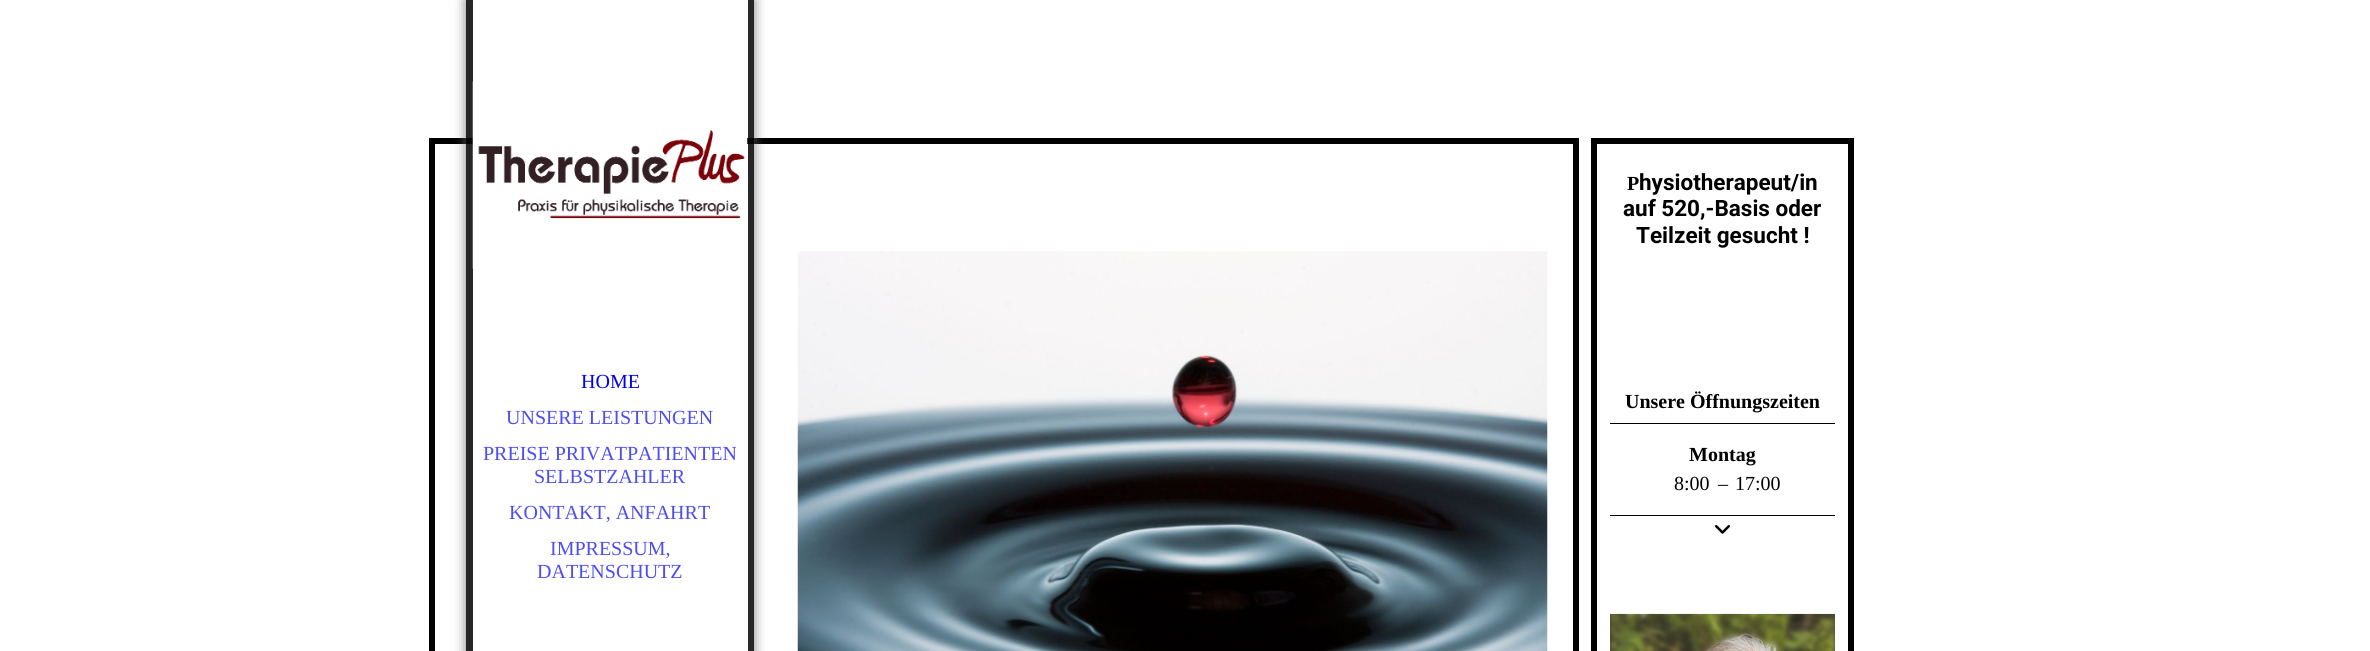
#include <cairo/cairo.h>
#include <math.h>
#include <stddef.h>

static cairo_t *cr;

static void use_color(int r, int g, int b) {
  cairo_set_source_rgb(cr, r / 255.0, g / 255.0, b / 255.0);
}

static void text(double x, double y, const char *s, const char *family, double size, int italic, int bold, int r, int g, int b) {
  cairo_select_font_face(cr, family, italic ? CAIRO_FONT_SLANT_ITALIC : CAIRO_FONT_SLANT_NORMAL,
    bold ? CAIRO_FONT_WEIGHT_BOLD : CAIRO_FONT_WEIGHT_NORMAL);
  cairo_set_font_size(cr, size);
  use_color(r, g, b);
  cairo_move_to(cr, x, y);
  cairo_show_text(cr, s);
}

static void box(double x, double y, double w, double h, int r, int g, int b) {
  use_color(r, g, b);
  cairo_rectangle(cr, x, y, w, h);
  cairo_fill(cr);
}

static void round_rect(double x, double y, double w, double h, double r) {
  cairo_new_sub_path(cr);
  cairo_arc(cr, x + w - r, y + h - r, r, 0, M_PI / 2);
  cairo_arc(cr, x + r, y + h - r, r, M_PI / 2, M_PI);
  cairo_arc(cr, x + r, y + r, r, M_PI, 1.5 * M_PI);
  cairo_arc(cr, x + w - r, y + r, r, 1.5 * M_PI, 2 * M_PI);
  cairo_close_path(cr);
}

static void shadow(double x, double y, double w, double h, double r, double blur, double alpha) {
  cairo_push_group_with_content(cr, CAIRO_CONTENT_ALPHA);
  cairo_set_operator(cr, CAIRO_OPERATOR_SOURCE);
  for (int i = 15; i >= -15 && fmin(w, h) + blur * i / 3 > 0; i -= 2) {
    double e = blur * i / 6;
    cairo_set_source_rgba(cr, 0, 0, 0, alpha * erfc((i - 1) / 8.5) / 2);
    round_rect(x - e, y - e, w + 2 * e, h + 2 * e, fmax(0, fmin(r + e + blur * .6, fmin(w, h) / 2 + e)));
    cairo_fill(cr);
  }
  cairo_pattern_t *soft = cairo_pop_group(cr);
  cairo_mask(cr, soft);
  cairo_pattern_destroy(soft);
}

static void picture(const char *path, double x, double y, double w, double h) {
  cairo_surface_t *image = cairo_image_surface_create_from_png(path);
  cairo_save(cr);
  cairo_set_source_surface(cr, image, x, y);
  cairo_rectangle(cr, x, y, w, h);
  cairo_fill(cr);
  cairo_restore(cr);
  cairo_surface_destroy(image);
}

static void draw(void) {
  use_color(255, 255, 255);
  cairo_paint(cr);
  cairo_rectangle(cr, 432, 141, 1144, 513);
  use_color(0, 0, 0);
  cairo_set_line_width(cr, 6);
  cairo_stroke(cr);
  cairo_save(cr);
  cairo_set_fill_rule(cr, CAIRO_FILL_RULE_EVEN_ODD);
  cairo_new_path(cr);
  cairo_move_to(cr, 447, 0);
  cairo_line_to(cr, 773, 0);
  cairo_line_to(cr, 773, 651);
  cairo_line_to(cr, 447, 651);
  cairo_close_path(cr);
  cairo_move_to(cr, 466, 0);
  cairo_line_to(cr, 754, 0);
  cairo_line_to(cr, 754, 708);
  cairo_line_to(cr, 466, 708);
  cairo_close_path(cr);
  cairo_clip(cr);
  use_color(102, 102, 102);
  shadow(466, 0, 288, 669, 0, 6, 0.85);
  cairo_restore(cr);
  cairo_set_source_rgba(cr, 0, 0, 0, 0.85);
  cairo_rectangle(cr, 748, 0, 6, 651);
  cairo_fill(cr);
  cairo_rectangle(cr, 466, 0, 7, 651);
  cairo_fill(cr);
  picture("img_01.png", 797, 251, 751, 400);
  cairo_rectangle(cr, 1594, 141, 257, 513);
  use_color(0, 0, 0);
  cairo_stroke(cr);
  box(1610, 423, 225, 1, 0, 0, 0);
  box(1610, 515, 225, 1, 0, 0, 0);
  picture("img_02.png", 1715, 525, 15, 9);
  picture("img_03.png", 1610, 613, 225, 38);
  picture("img_04.png", 472, 81, 276, 188);
  text(1627, 190, "P", "Liberation Serif", 20, 0, 1, 0, 0, 0);
  text(1639, 190, "hysiotherapeut/in", "Roboto", 22.5, 0, 1, 0, 0, 0);
  text(1623, 216, "auf 520,-Basis oder", "Roboto", 22.5, 0, 1, 0, 0, 0);
  text(1636, 243, "Teilzeit gesucht !", "Roboto", 22.5, 0, 1, 0, 0, 0);
  text(1625, 408, "Unsere Öffnungszeiten", "Liberation Serif", 20, 0, 1, 0, 0, 0);
  text(1689, 461, "Montag", "Liberation Serif", 20, 0, 1, 0, 0, 0);
  text(1674, 490, "8:00", "Liberation Serif", 20, 0, 0, 0, 0, 0);
  text(1718, 490, "–", "Liberation Serif", 20, 0, 0, 0, 0, 0);
  text(1735, 490, "17:00", "Liberation Serif", 20, 0, 0, 0, 0, 0);
  text(581, 388, "HOME", "Liberation Serif", 20, 0, 0, 0, 0, 238);
  text(506, 424, "UNSERE LEISTUNGEN", "Liberation Serif", 20, 0, 0, 77, 77, 243);
  text(483, 460, "PREISE PRIVATPATIENTEN", "Liberation Serif", 20, 0, 0, 77, 77, 243);
  text(534, 483, "SELBSTZAHLER", "Liberation Serif", 20, 0, 0, 77, 77, 243);
  text(509, 519, "KONTAKT, ANFAHRT", "Liberation Serif", 20, 0, 0, 77, 77, 243);
  text(550, 555, "IMPRESSUM,", "Liberation Serif", 20, 0, 0, 77, 77, 243);
  text(537, 578, "DATENSCHUTZ", "Liberation Serif", 20, 0, 0, 77, 77, 243);
}

int main(void) {
  cairo_surface_t *surface = cairo_image_surface_create(CAIRO_FORMAT_RGB24, 2370, 651);
  cr = cairo_create(surface);
  cairo_font_options_t *options = cairo_font_options_create();
  cairo_font_options_set_hint_metrics(options, CAIRO_HINT_METRICS_OFF);
  cairo_font_options_set_hint_style(options, CAIRO_HINT_STYLE_NONE);
  cairo_set_font_options(cr, options);
  cairo_set_miter_limit(cr, 4);
  draw();
  cairo_surface_write_to_png(surface, "out.png");
  cairo_font_options_destroy(options);
  cairo_destroy(cr);
  cairo_surface_destroy(surface);
  return 0;
}
